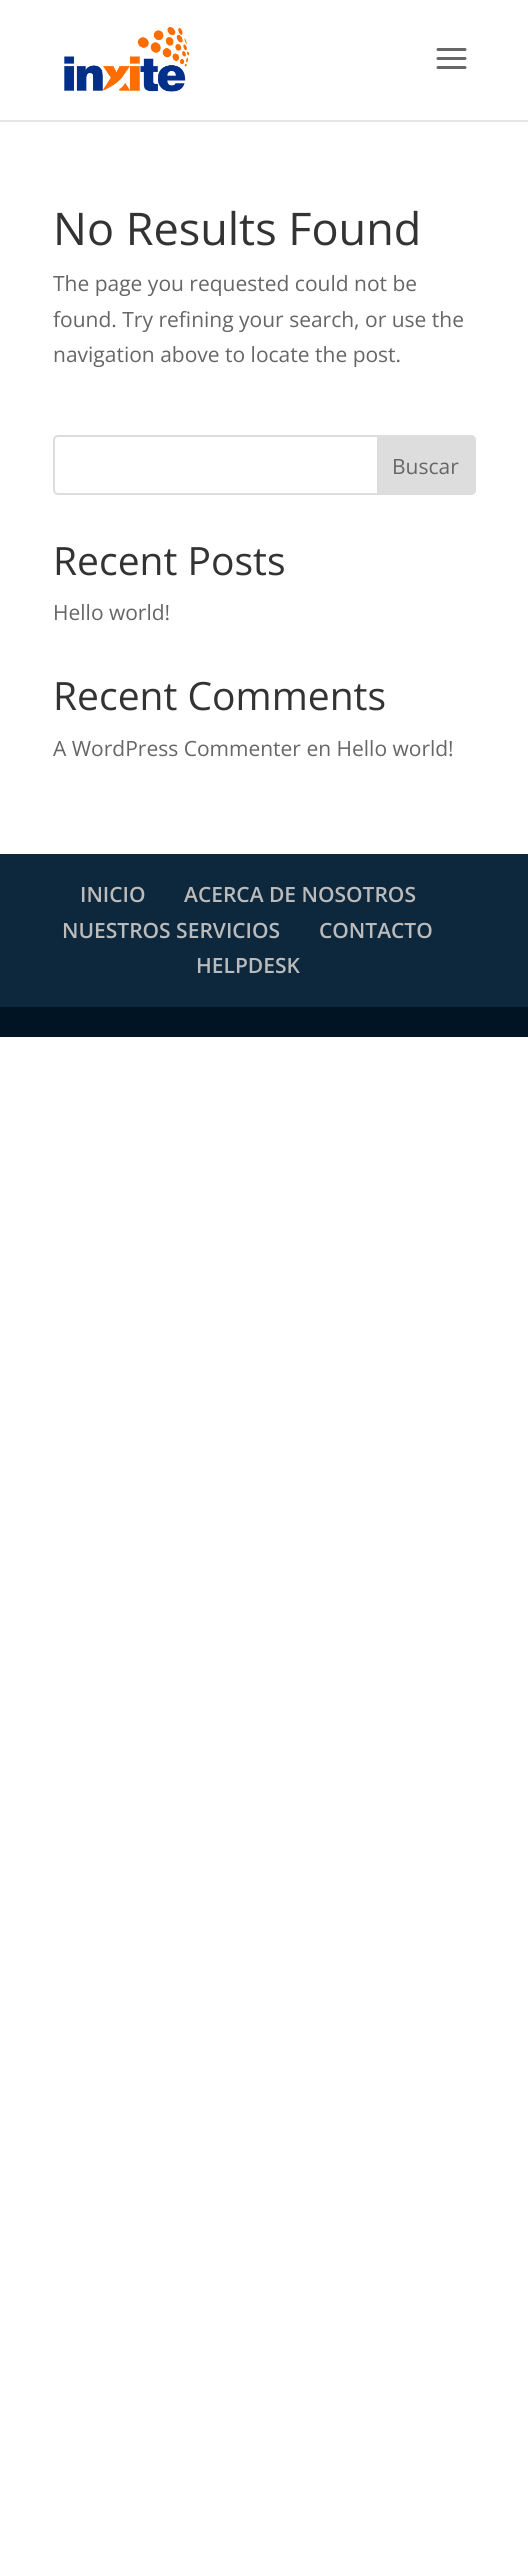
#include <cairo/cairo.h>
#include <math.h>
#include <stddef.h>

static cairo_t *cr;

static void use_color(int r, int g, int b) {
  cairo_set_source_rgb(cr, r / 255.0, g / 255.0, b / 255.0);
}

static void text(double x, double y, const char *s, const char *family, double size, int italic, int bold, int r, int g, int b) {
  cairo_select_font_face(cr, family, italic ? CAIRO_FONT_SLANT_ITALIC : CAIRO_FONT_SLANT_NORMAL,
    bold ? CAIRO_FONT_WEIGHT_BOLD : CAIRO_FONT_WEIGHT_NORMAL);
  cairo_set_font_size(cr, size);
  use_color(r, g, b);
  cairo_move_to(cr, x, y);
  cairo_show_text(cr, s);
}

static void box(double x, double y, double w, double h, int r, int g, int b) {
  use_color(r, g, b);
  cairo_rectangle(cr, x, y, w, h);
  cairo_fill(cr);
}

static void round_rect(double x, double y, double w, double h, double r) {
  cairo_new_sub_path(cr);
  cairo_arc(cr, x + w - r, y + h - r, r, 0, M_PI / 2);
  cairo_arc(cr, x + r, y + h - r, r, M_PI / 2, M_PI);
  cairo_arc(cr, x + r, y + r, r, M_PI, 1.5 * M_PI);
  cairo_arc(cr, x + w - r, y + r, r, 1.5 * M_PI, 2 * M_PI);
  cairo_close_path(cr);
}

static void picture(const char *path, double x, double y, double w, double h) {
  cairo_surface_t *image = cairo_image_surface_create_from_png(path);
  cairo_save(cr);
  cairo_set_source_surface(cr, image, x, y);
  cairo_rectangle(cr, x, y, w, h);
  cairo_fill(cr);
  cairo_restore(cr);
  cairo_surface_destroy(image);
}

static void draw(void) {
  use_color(255, 255, 255);
  cairo_paint(cr);
  box(0, 120, 528, 2, 230, 230, 230);
  picture("img_01.png", 64, 27, 126, 65);
  picture("img_02.png", 436, 48, 31, 21);
  round_rect(54, 436, 421, 58, 4);
  use_color(221, 221, 221);
  cairo_stroke(cr);
  cairo_new_path(cr);
  cairo_move_to(cr, 378, 436);
  cairo_line_to(cr, 471, 436);
  cairo_curve_to(cr, 473, 436, 475, 438, 475, 440);
  cairo_line_to(cr, 475, 490);
  cairo_curve_to(cr, 475, 492, 473, 494, 471, 494);
  cairo_line_to(cr, 378, 494);
  cairo_close_path(cr);
  cairo_fill_preserve(cr);
  cairo_stroke(cr);
  box(0, 854, 528, 153, 13, 40, 61);
  box(0, 1007, 528, 30, 0, 20, 35);
  text(53, 245, "No Results Found", "Open Sans", 45, 0, 0, 51, 51, 51);
  text(53, 291, "The page you requested could not be", "Open Sans", 21, 0, 0, 102, 102, 102);
  text(53, 327, "found. Try refining your search, or use the", "Open Sans", 21, 0, 0, 102, 102, 102);
  text(53, 362, "navigation above to locate the post.", "Open Sans", 21, 0, 0, 102, 102, 102);
  text(392, 474, "Buscar", "Open Sans", 21, 0, 0, 102, 102, 102);
  text(53, 575, "Recent Posts", "Open Sans", 39, 0, 0, 51, 51, 51);
  text(53, 620, "Hello world!", "Open Sans", 21, 0, 0, 102, 102, 102);
  text(53, 710, "Recent Comments", "Open Sans", 39, 0, 0, 51, 51, 51);
  text(53, 756, "A WordPress Commenter en Hello world!", "Open Sans", 21, 0, 0, 102, 102, 102);
  text(80, 902, "INICIO", "Open Sans SemiBold", 21, 0, 0, 187, 187, 187);
  text(184, 902, "ACERCA DE NOSOTROS", "Open Sans SemiBold", 21, 0, 0, 187, 187, 187);
  text(62, 938, "NUESTROS SERVICIOS", "Open Sans SemiBold", 21, 0, 0, 187, 187, 187);
  text(319, 938, "CONTACTO", "Open Sans SemiBold", 21, 0, 0, 187, 187, 187);
  text(196, 973, "HELPDESK", "Open Sans SemiBold", 21, 0, 0, 187, 187, 187);
}

int main(void) {
  cairo_surface_t *surface = cairo_image_surface_create(CAIRO_FORMAT_RGB24, 528, 2554);
  cr = cairo_create(surface);
  cairo_font_options_t *options = cairo_font_options_create();
  cairo_font_options_set_hint_metrics(options, CAIRO_HINT_METRICS_OFF);
  cairo_font_options_set_hint_style(options, CAIRO_HINT_STYLE_NONE);
  cairo_set_font_options(cr, options);
  cairo_set_miter_limit(cr, 4);
  draw();
  cairo_surface_write_to_png(surface, "out.png");
  cairo_font_options_destroy(options);
  cairo_destroy(cr);
  cairo_surface_destroy(surface);
  return 0;
}
